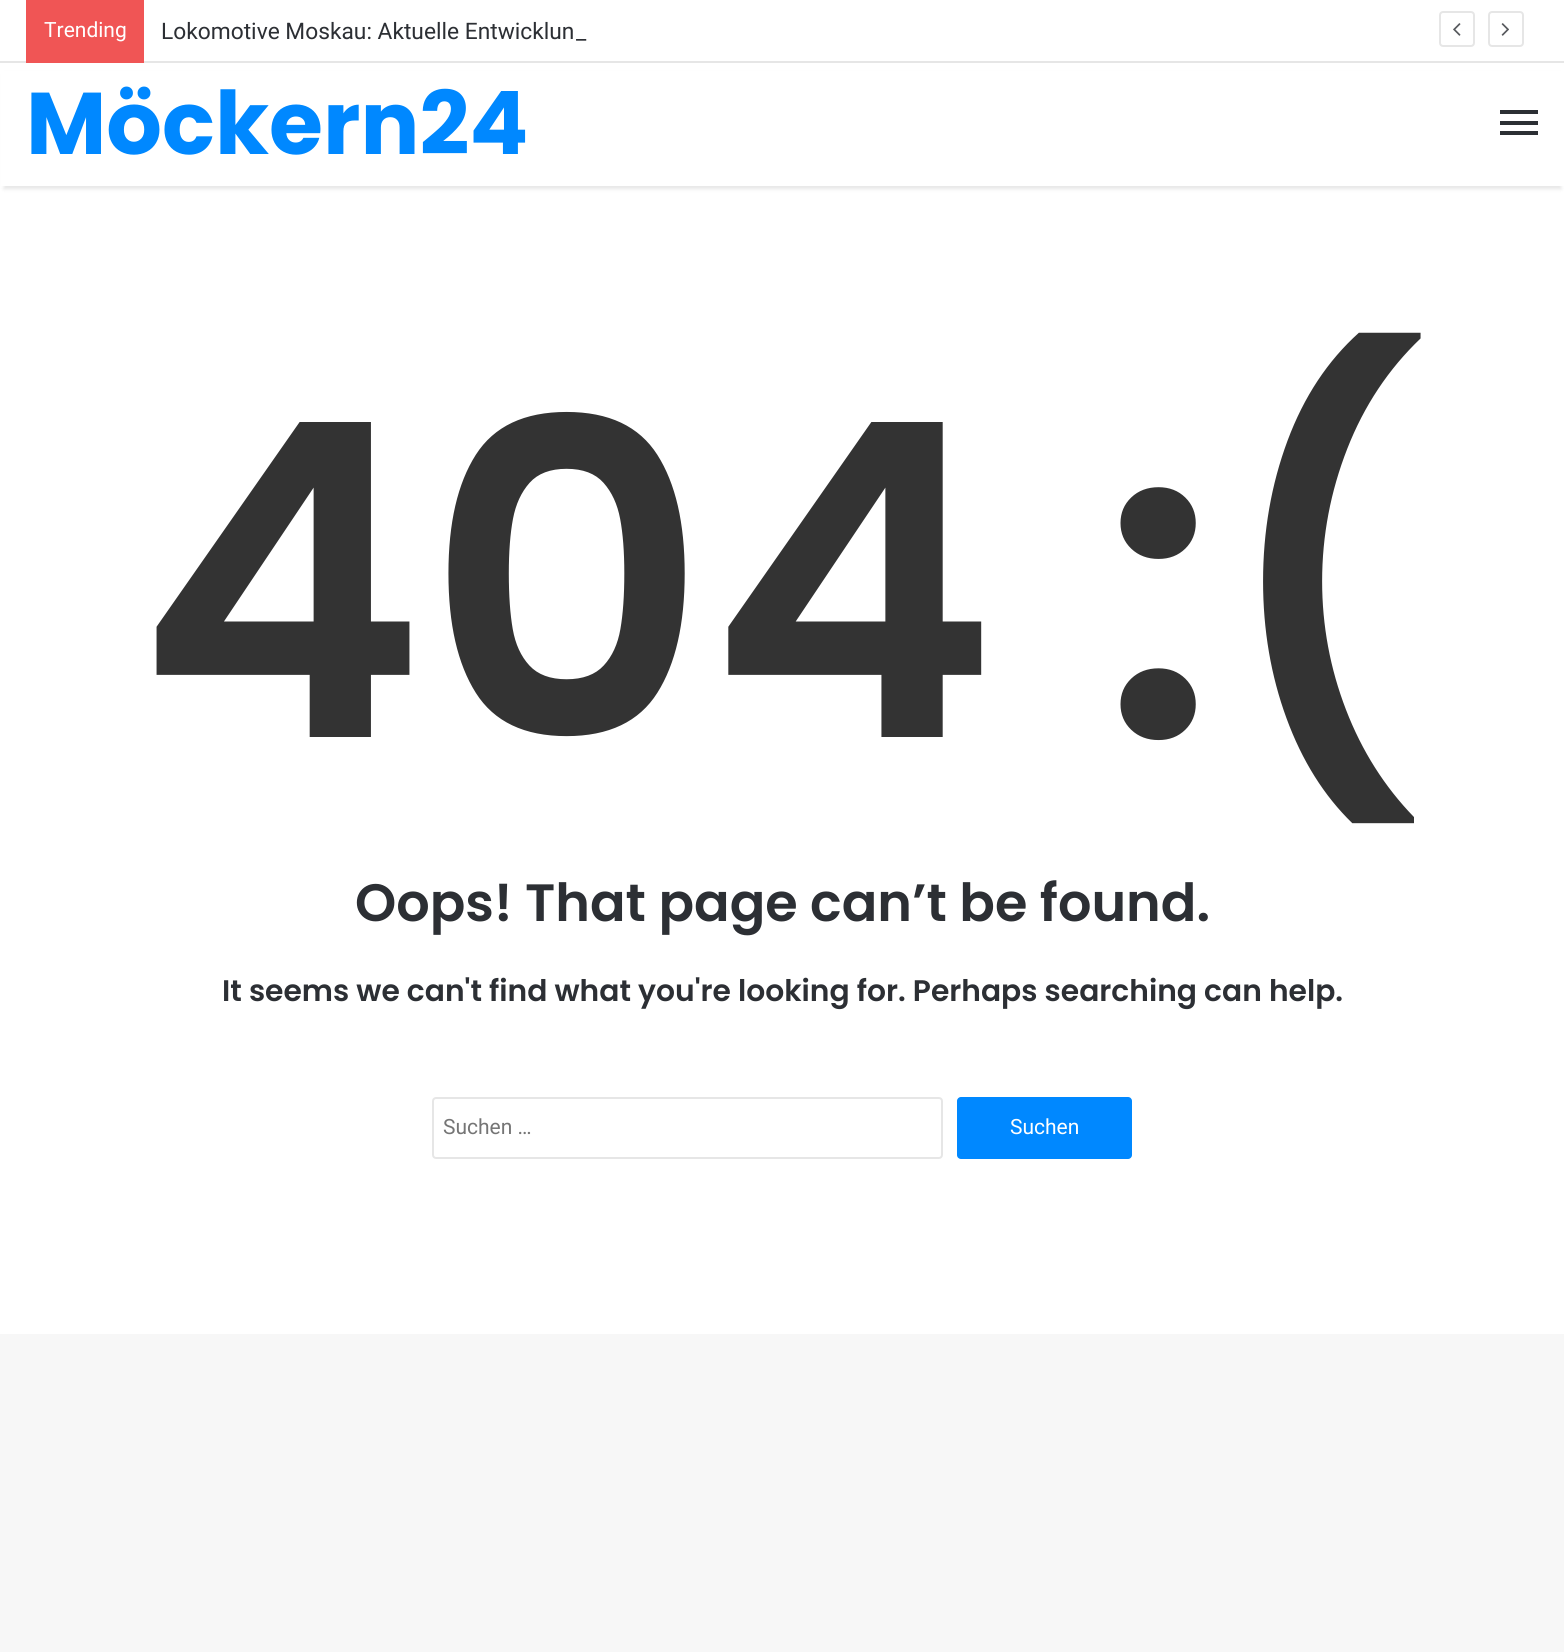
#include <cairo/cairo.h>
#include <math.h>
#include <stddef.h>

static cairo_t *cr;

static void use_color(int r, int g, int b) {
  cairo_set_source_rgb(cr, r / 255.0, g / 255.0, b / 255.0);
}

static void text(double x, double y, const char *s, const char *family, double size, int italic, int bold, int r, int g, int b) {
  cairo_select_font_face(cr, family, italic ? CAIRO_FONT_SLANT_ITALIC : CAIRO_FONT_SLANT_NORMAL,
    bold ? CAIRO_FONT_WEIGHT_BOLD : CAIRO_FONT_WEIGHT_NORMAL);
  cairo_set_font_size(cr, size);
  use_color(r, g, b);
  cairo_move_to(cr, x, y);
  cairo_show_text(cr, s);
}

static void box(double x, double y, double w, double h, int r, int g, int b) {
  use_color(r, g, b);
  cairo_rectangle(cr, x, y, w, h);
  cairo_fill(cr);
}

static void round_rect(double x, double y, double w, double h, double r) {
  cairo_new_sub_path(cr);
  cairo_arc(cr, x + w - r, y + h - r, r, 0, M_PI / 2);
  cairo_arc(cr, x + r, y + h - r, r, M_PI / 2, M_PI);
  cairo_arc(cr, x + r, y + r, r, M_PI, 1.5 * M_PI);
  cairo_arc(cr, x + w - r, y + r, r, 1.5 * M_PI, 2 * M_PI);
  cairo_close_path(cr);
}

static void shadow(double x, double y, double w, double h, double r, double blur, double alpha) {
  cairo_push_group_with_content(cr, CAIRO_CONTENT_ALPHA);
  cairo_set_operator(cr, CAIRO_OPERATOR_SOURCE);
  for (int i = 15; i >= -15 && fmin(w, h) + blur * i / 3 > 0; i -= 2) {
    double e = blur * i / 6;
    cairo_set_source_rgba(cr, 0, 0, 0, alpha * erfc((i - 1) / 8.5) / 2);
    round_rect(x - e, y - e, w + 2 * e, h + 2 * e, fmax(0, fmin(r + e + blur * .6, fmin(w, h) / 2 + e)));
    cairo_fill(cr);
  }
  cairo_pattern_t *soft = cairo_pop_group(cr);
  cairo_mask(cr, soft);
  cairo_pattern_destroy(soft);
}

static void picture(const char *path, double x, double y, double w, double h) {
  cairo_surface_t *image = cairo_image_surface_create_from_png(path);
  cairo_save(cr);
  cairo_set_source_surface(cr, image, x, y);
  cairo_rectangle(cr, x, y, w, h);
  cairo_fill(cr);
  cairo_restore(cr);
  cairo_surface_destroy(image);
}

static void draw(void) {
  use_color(247, 247, 247);
  cairo_paint(cr);
  box(0, 0, 1564, 1334, 255, 255, 255);
  box(0, 61, 1564, 2, 230, 230, 230);
  box(26, 0, 118, 63, 240, 85, 85);
  round_rect(1440, 12, 34, 34, 3);
  use_color(230, 230, 230);
  cairo_stroke(cr);
  picture("img_01.png", 1453, 23, 8, 13);
  round_rect(1489, 12, 34, 34, 3);
  cairo_stroke(cr);
  picture("img_02.png", 1501, 23, 8, 13);
  use_color(0, 0, 0);
  shadow(4, 74, 1557, 115, 0, 2, 0.1);
  box(1, 71, 1563, 115, 255, 255, 255);
  box(1500, 121, 38, 4, 44, 47, 52);
  box(1500, 110, 38, 4, 44, 47, 52);
  box(1500, 131, 38, 4, 44, 47, 52);
  round_rect(433, 1098, 509, 60, 3);
  use_color(230, 230, 230);
  cairo_stroke(cr);
  use_color(0, 136, 255);
  round_rect(957, 1097, 175, 62, 4);
  cairo_fill(cr);
  text(44, 37, "Trending", "Roboto", 21, 0, 0, 255, 255, 255);
  text(161, 39, "Lokomotive Moskau: Aktuelle Entwicklun", "Roboto", 22.75, 0, 0, 44, 47, 52);
  text(576, 39, "_", "Roboto", 22.75, 0, 0, 44, 47, 52);
  text(26, 154, "Möckern24", "Poppins", 87.5, 0, 1, 0, 136, 255);
  text(136, 737, "404 :(", "Poppins SemiBold", 437.5, 0, 0, 51, 51, 51);
  text(355, 921, "Oops! That page can’t be found.", "Poppins SemiBold", 52.5, 0, 0, 44, 47, 52);
  text(222, 1001, "It seems we can't find what you're looking for. Perhaps searching can help.", "Poppins SemiBold", 29.75, 0, 0, 44, 47, 52);
  text(443, 1134, "Suchen …", "Roboto", 21, 0, 0, 117, 117, 117);
  text(1010, 1134, "Suchen", "Roboto", 21, 0, 0, 255, 255, 255);
}

int main(void) {
  cairo_surface_t *surface = cairo_image_surface_create(CAIRO_FORMAT_RGB24, 1564, 1652);
  cr = cairo_create(surface);
  cairo_font_options_t *options = cairo_font_options_create();
  cairo_font_options_set_hint_metrics(options, CAIRO_HINT_METRICS_OFF);
  cairo_font_options_set_hint_style(options, CAIRO_HINT_STYLE_NONE);
  cairo_set_font_options(cr, options);
  cairo_set_miter_limit(cr, 4);
  draw();
  cairo_surface_write_to_png(surface, "out.png");
  cairo_font_options_destroy(options);
  cairo_destroy(cr);
  cairo_surface_destroy(surface);
  return 0;
}
